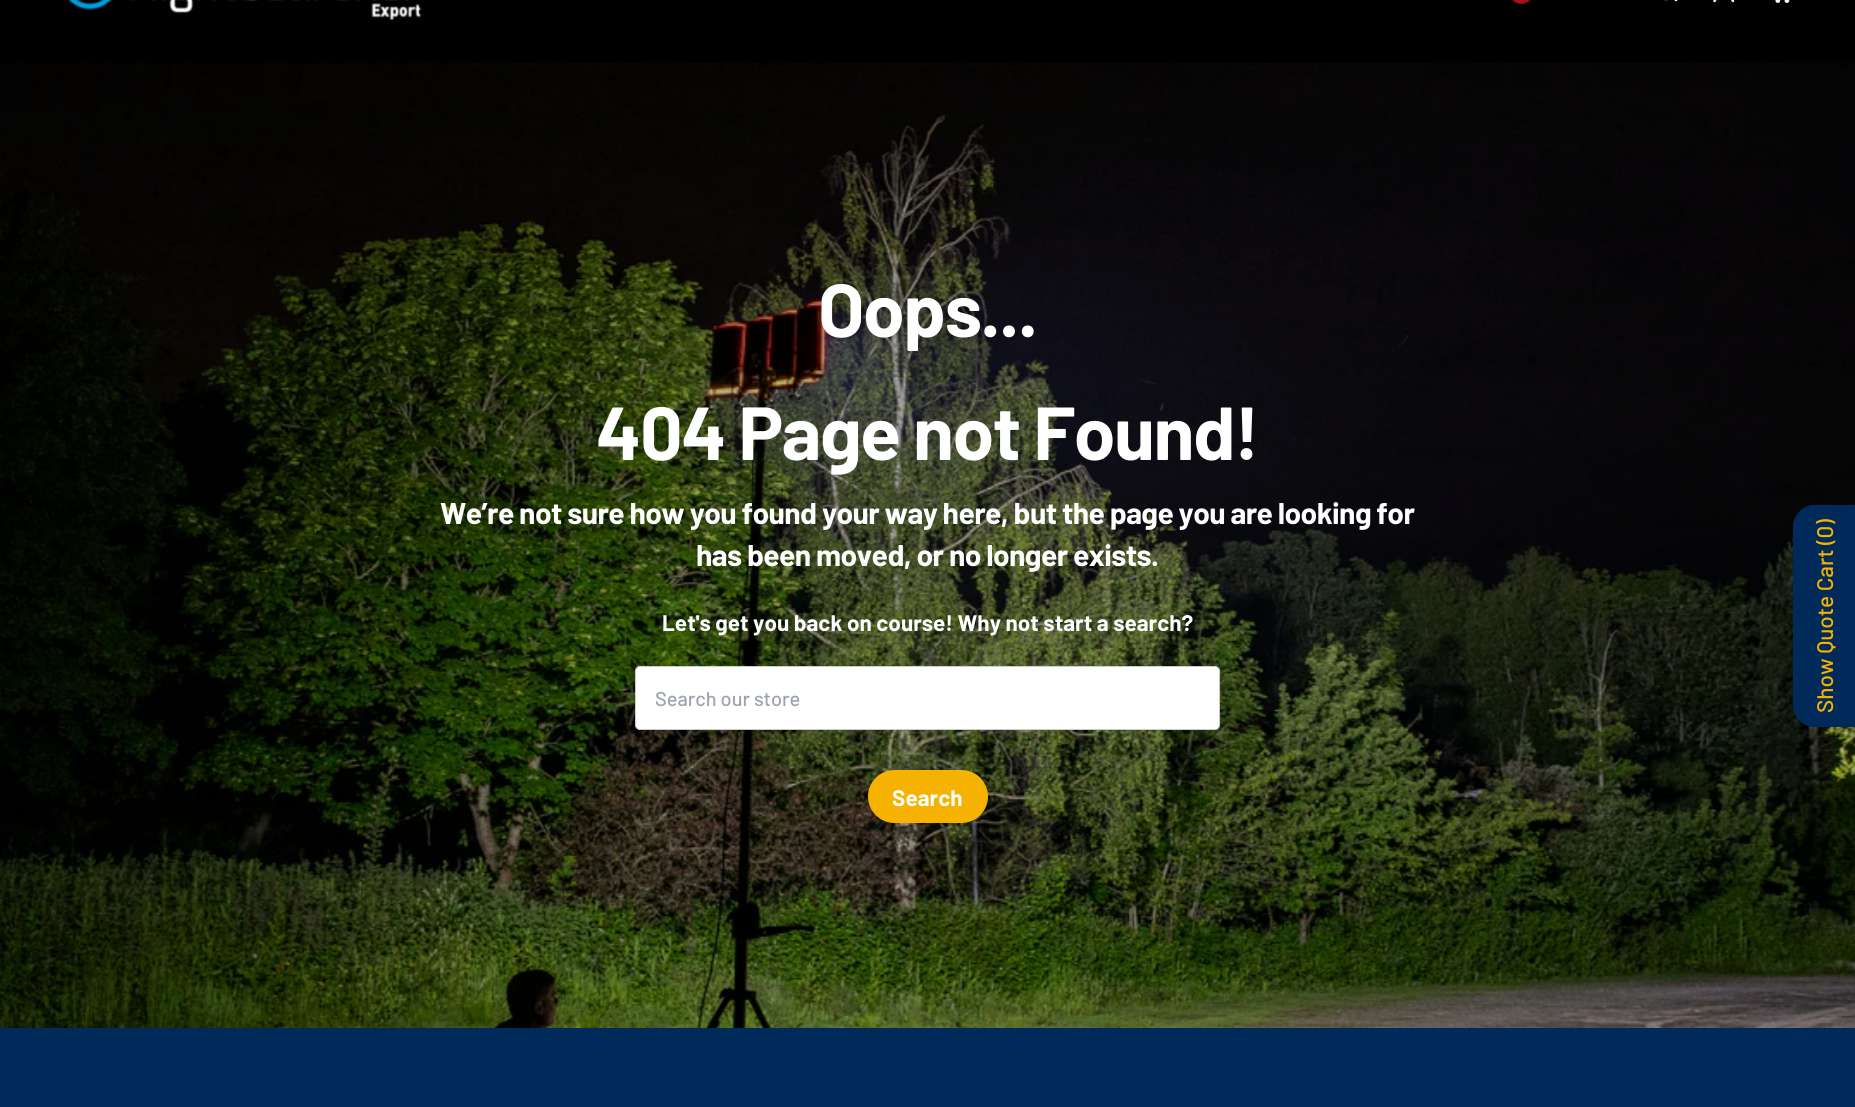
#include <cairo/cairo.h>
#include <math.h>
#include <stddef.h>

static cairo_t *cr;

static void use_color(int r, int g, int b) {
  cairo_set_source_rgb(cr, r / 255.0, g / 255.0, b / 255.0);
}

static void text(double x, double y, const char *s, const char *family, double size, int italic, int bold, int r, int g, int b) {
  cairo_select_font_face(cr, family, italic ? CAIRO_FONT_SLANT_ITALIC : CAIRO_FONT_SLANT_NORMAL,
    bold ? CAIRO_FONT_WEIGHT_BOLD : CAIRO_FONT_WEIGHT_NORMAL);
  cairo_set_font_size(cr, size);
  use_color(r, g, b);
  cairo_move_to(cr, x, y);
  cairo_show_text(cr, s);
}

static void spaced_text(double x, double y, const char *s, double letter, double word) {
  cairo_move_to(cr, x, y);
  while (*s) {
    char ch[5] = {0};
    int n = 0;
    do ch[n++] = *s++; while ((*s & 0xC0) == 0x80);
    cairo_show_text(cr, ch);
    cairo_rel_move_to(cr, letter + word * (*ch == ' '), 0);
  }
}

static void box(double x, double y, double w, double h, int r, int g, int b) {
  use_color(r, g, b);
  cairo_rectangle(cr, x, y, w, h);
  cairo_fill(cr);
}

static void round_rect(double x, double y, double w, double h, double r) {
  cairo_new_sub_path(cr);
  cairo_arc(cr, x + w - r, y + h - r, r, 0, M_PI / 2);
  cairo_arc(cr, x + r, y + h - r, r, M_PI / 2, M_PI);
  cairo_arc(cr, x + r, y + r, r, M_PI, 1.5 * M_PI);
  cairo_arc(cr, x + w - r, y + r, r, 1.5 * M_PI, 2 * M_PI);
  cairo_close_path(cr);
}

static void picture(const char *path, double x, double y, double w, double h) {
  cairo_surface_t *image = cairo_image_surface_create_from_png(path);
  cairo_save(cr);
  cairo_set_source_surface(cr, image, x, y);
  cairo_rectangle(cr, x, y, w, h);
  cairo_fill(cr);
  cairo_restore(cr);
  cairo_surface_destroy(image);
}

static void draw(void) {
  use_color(255, 255, 255);
  cairo_paint(cr);
  box(0, 0, 1855, 63, 0, 0, 0);
  picture("img_01.png", 68, 0, 354, 21);
  picture("img_02.png", 1511, 0, 21, 4);
  cairo_arc(cr, 1666, -10, 9, 0, 2 * M_PI);
  use_color(255, 255, 255);
  cairo_set_line_width(cr, 2.5);
  cairo_stroke(cr);
  cairo_new_path(cr);
  cairo_move_to(cr, 1672.5, -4);
  cairo_line_to(cr, 1676, 0);
  cairo_set_line_cap(cr, CAIRO_LINE_CAP_ROUND);
  cairo_set_line_join(cr, CAIRO_LINE_JOIN_ROUND);
  cairo_stroke(cr);
  cairo_new_path(cr);
  cairo_move_to(cr, 1714.5, 1);
  cairo_curve_to(cr, 1718.5, -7, 1729, -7, 1733, 1);
  cairo_set_line_join(cr, CAIRO_LINE_JOIN_MITER);
  cairo_stroke(cr);
  picture("img_03.png", 1775, 0, 15, 3);
  picture("img_04.png", 0, 63, 1855, 965);
  round_rect(635.5, 666.5, 584, 63, 4.5);
  cairo_fill_preserve(cr);
  use_color(204, 204, 204);
  cairo_set_line_width(cr, 1);
  cairo_set_line_cap(cr, CAIRO_LINE_CAP_BUTT);
  cairo_stroke(cr);
  use_color(245, 178, 0);
  round_rect(868, 770, 120, 53, 26.5);
  cairo_fill(cr);
  box(0, 1028, 1855, 79, 0, 42, 89);
  cairo_new_path(cr);
  cairo_move_to(cr, 1793, 704);
  cairo_line_to(cr, 1793, 528);
  cairo_curve_to(cr, 1793, 515, 1803, 505, 1815, 505);
  cairo_line_to(cr, 1855, 505);
  cairo_line_to(cr, 1855, 727);
  cairo_line_to(cr, 1815, 727);
  cairo_curve_to(cr, 1803, 727, 1793, 717, 1793, 704);
  cairo_close_path(cr);
  cairo_fill(cr);
  use_color(0, 42, 88);
  cairo_set_fill_rule(cr, CAIRO_FILL_RULE_EVEN_ODD);
  cairo_new_path(cr);
  cairo_move_to(cr, 1793, 704);
  cairo_line_to(cr, 1793, 528);
  cairo_curve_to(cr, 1793, 515, 1803, 505, 1815, 505);
  cairo_line_to(cr, 1855, 505);
  cairo_line_to(cr, 1855, 727);
  cairo_line_to(cr, 1815, 727);
  cairo_curve_to(cr, 1803, 727, 1793, 717, 1793, 704);
  cairo_close_path(cr);
  cairo_move_to(cr, 1794, 704);
  cairo_line_to(cr, 1794, 528);
  cairo_curve_to(cr, 1794, 516, 1804, 506, 1815, 506);
  cairo_line_to(cr, 1855, 506);
  cairo_line_to(cr, 1855, 725);
  cairo_line_to(cr, 1815, 725);
  cairo_curve_to(cr, 1804, 725, 1794, 716, 1794, 704);
  cairo_close_path(cr);
  cairo_fill(cr);
  cairo_select_font_face(cr, "Barlow", CAIRO_FONT_SLANT_NORMAL, CAIRO_FONT_WEIGHT_BOLD);
  cairo_set_font_size(cr, 75);
  use_color(255, 255, 255);
  spaced_text(818, 337, "Oops...", -1.5, 0);
  spaced_text(596, 460, "404 Page not Found!", -1.5, 0);
  cairo_set_font_size(cr, 30);
  spaced_text(440, 524, "We’re not sure how you found your way here, but the page you are looking for", -0.6, 0);
  spaced_text(696, 566, "has been moved, or no longer exists.", -0.6, 0);
  text(662, 631, "Let's get you back on course! Why not start a search?", "Barlow", 22.5, 0, 1, 255, 255, 255);
  text(655, 706, "Search our store", "Barlow Medium", 20, 0, 0, 156, 163, 175);
  text(892, 806, "Search", "Barlow", 22.5, 0, 1, 255, 255, 255);
  cairo_save(cr);
  cairo_translate(cr, 1833, 545);
  cairo_rotate(cr, -90 * M_PI / 180);
  text(0, 0, "(0)", "Barlow Medium", 22.5, 0, 0, 245, 178, 0);
  cairo_restore(cr);
  cairo_save(cr);
  cairo_translate(cr, 1833, 713);
  cairo_rotate(cr, -90 * M_PI / 180);
  text(0, 0, "Show Quote Cart", "Barlow Medium", 22.5, 0, 0, 245, 178, 0);
  cairo_restore(cr);
}

int main(void) {
  cairo_surface_t *surface = cairo_image_surface_create(CAIRO_FORMAT_RGB24, 1855, 1107);
  cr = cairo_create(surface);
  cairo_font_options_t *options = cairo_font_options_create();
  cairo_font_options_set_hint_metrics(options, CAIRO_HINT_METRICS_OFF);
  cairo_font_options_set_hint_style(options, CAIRO_HINT_STYLE_NONE);
  cairo_set_font_options(cr, options);
  cairo_set_miter_limit(cr, 4);
  draw();
  cairo_surface_write_to_png(surface, "out.png");
  cairo_font_options_destroy(options);
  cairo_destroy(cr);
  cairo_surface_destroy(surface);
  return 0;
}
